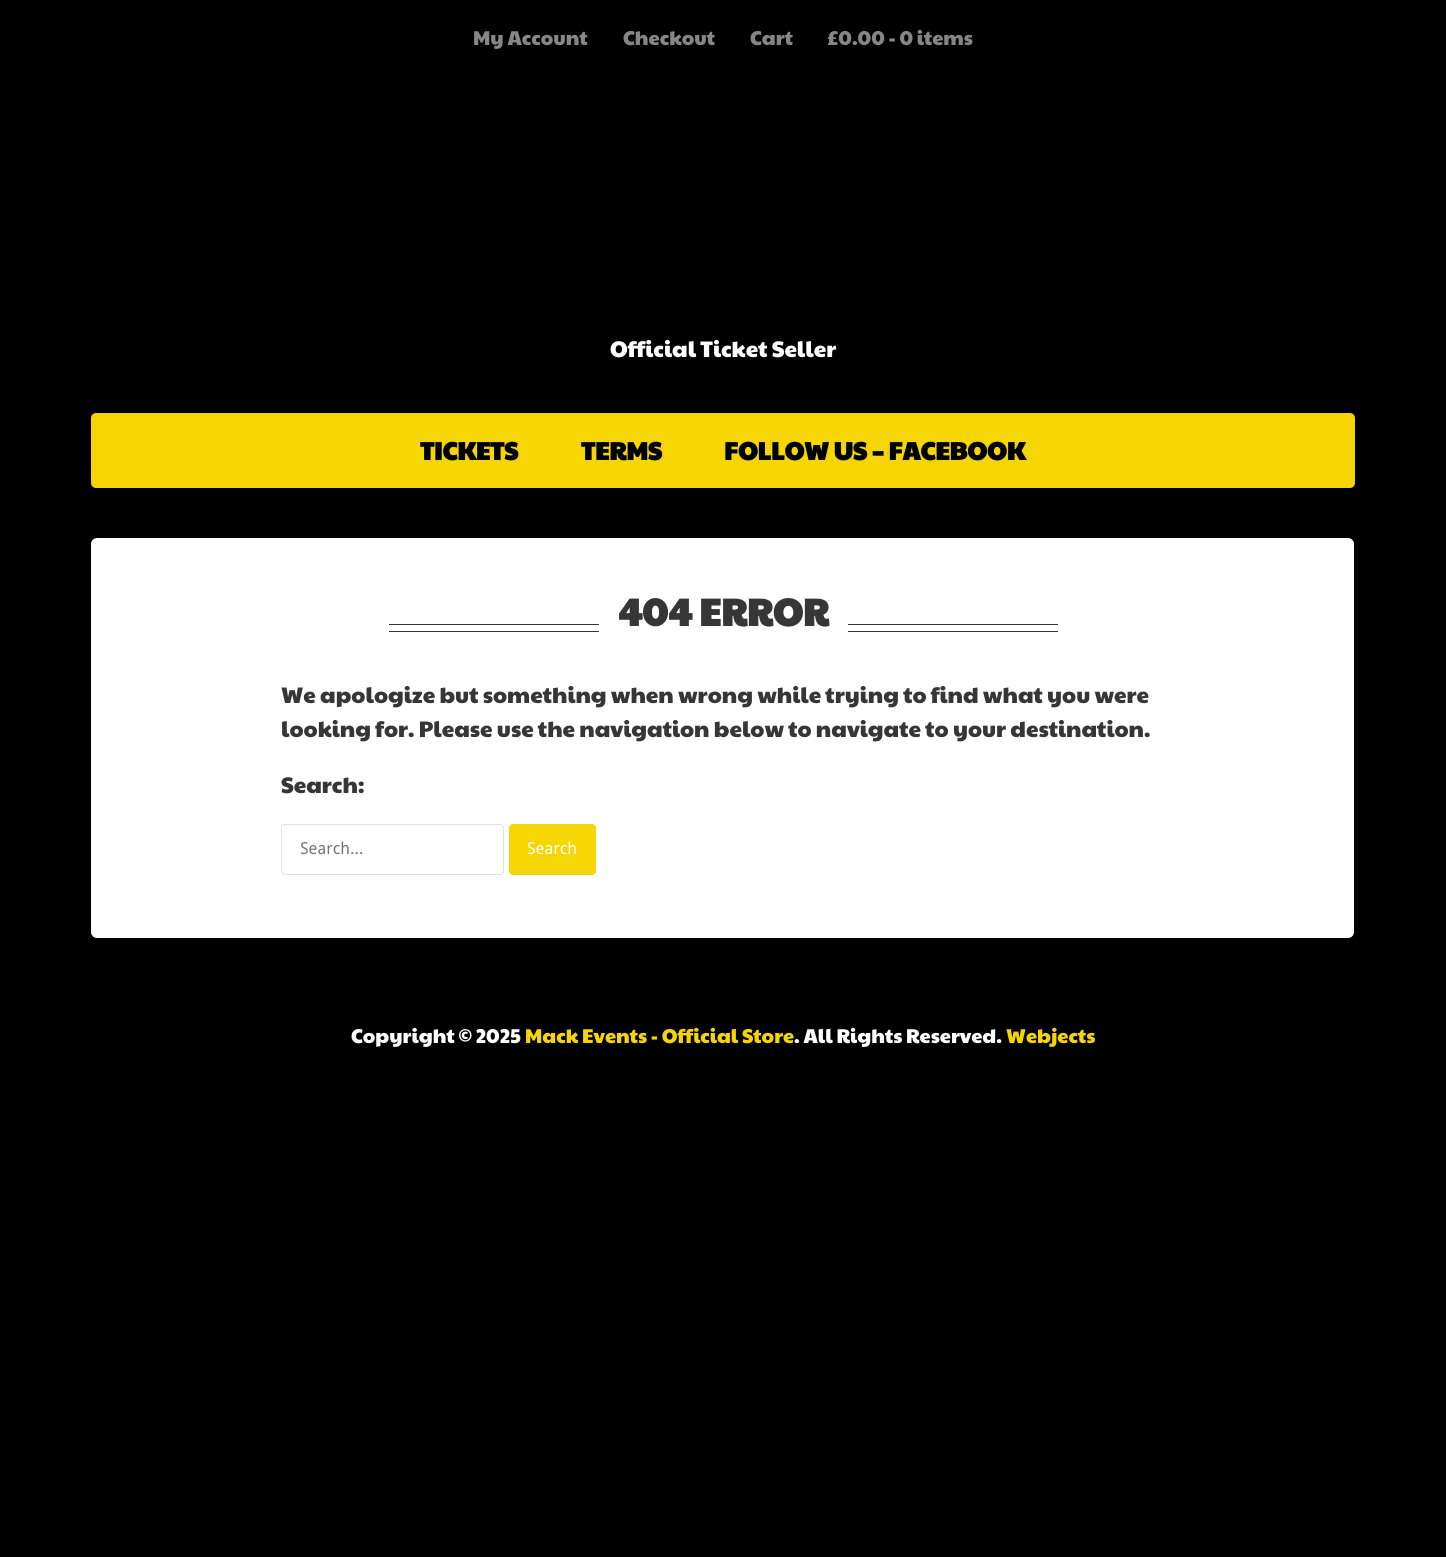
#include <cairo/cairo.h>
#include <math.h>
#include <stddef.h>

static cairo_t *cr;

static void use_color(int r, int g, int b) {
  cairo_set_source_rgb(cr, r / 255.0, g / 255.0, b / 255.0);
}

static void text(double x, double y, const char *s, const char *family, double size, int italic, int bold, int r, int g, int b) {
  cairo_select_font_face(cr, family, italic ? CAIRO_FONT_SLANT_ITALIC : CAIRO_FONT_SLANT_NORMAL,
    bold ? CAIRO_FONT_WEIGHT_BOLD : CAIRO_FONT_WEIGHT_NORMAL);
  cairo_set_font_size(cr, size);
  use_color(r, g, b);
  cairo_move_to(cr, x, y);
  cairo_show_text(cr, s);
}

static void box(double x, double y, double w, double h, int r, int g, int b) {
  use_color(r, g, b);
  cairo_rectangle(cr, x, y, w, h);
  cairo_fill(cr);
}

static void round_rect(double x, double y, double w, double h, double r) {
  cairo_new_sub_path(cr);
  cairo_arc(cr, x + w - r, y + h - r, r, 0, M_PI / 2);
  cairo_arc(cr, x + r, y + h - r, r, M_PI / 2, M_PI);
  cairo_arc(cr, x + r, y + r, r, M_PI, 1.5 * M_PI);
  cairo_arc(cr, x + w - r, y + r, r, 1.5 * M_PI, 2 * M_PI);
  cairo_close_path(cr);
}

static void draw(void) {
  use_color(0, 0, 0);
  cairo_paint(cr);
  use_color(245, 213, 4);
  round_rect(91, 413, 1264, 75, 5);
  cairo_fill(cr);
  use_color(255, 255, 255);
  round_rect(91, 538, 1263, 400, 6);
  cairo_fill(cr);
  box(389, 624, 210, 1, 54, 54, 54);
  box(389, 631, 210, 1, 54, 54, 54);
  box(848, 624, 210, 1, 54, 54, 54);
  box(848, 631, 210, 1, 54, 54, 54);
  round_rect(281.5, 824.5, 222, 50, 3.5);
  use_color(224, 224, 224);
  cairo_set_line_width(cr, 1);
  cairo_stroke(cr);
  use_color(245, 213, 4);
  round_rect(509.5, 824.5, 86, 50, 3.5);
  cairo_fill_preserve(cr);
  cairo_stroke(cr);
  text(473, 45, "My Account", "Paytone One", 20, 0, 0, 134, 134, 134);
  text(623, 45, "Checkout", "Paytone One", 20, 0, 0, 134, 134, 134);
  text(750, 45, "Cart", "Paytone One", 20, 0, 0, 134, 134, 134);
  text(827, 45, "£0.00 - 0 items", "Paytone One", 20, 0, 0, 134, 134, 134);
  text(610, 357, "Official Ticket Seller", "Paytone One", 22.5, 0, 0, 255, 255, 255);
  text(420, 460, "TICKETS", "Paytone One", 25, 0, 1, 0, 0, 0);
  text(581, 460, "TERMS", "Paytone One", 25, 0, 1, 0, 0, 0);
  text(724, 460, "FOLLOW US – FACEBOOK", "Paytone One", 25, 0, 1, 0, 0, 0);
  text(618, 626, "404 ERROR", "Paytone One", 38.25, 0, 1, 54, 54, 54);
  text(281, 703, "We apologize but something when wrong while trying to find what you were", "Paytone One", 22.5, 0, 0, 54, 54, 54);
  text(281, 737, "looking for. Please use the navigation below to navigate to your destination.", "Paytone One", 22.5, 0, 0, 54, 54, 54);
  text(281, 793, "Search:", "Paytone One", 22.5, 0, 0, 54, 54, 54);
  text(300, 854, "Search...", "Droid Sans", 16.5, 0, 0, 117, 117, 117);
  text(527, 854, "Search", "Droid Sans", 16.5, 0, 0, 255, 255, 255);
  text(351, 1043, "Copyright © 2025", "Paytone One", 20, 0, 0, 255, 255, 255);
  text(525, 1043, "Mack Events - Official Store", "Paytone One", 20, 0, 0, 245, 213, 4);
  text(794, 1043, ". All Rights Reserved.", "Paytone One", 20, 0, 0, 255, 255, 255);
  text(1006, 1043, "Webjects", "Paytone One", 20, 0, 0, 245, 213, 4);
}

int main(void) {
  cairo_surface_t *surface = cairo_image_surface_create(CAIRO_FORMAT_RGB24, 1446, 1557);
  cr = cairo_create(surface);
  cairo_font_options_t *options = cairo_font_options_create();
  cairo_font_options_set_hint_metrics(options, CAIRO_HINT_METRICS_OFF);
  cairo_font_options_set_hint_style(options, CAIRO_HINT_STYLE_NONE);
  cairo_set_font_options(cr, options);
  cairo_set_miter_limit(cr, 4);
  draw();
  cairo_surface_write_to_png(surface, "out.png");
  cairo_font_options_destroy(options);
  cairo_destroy(cr);
  cairo_surface_destroy(surface);
  return 0;
}
